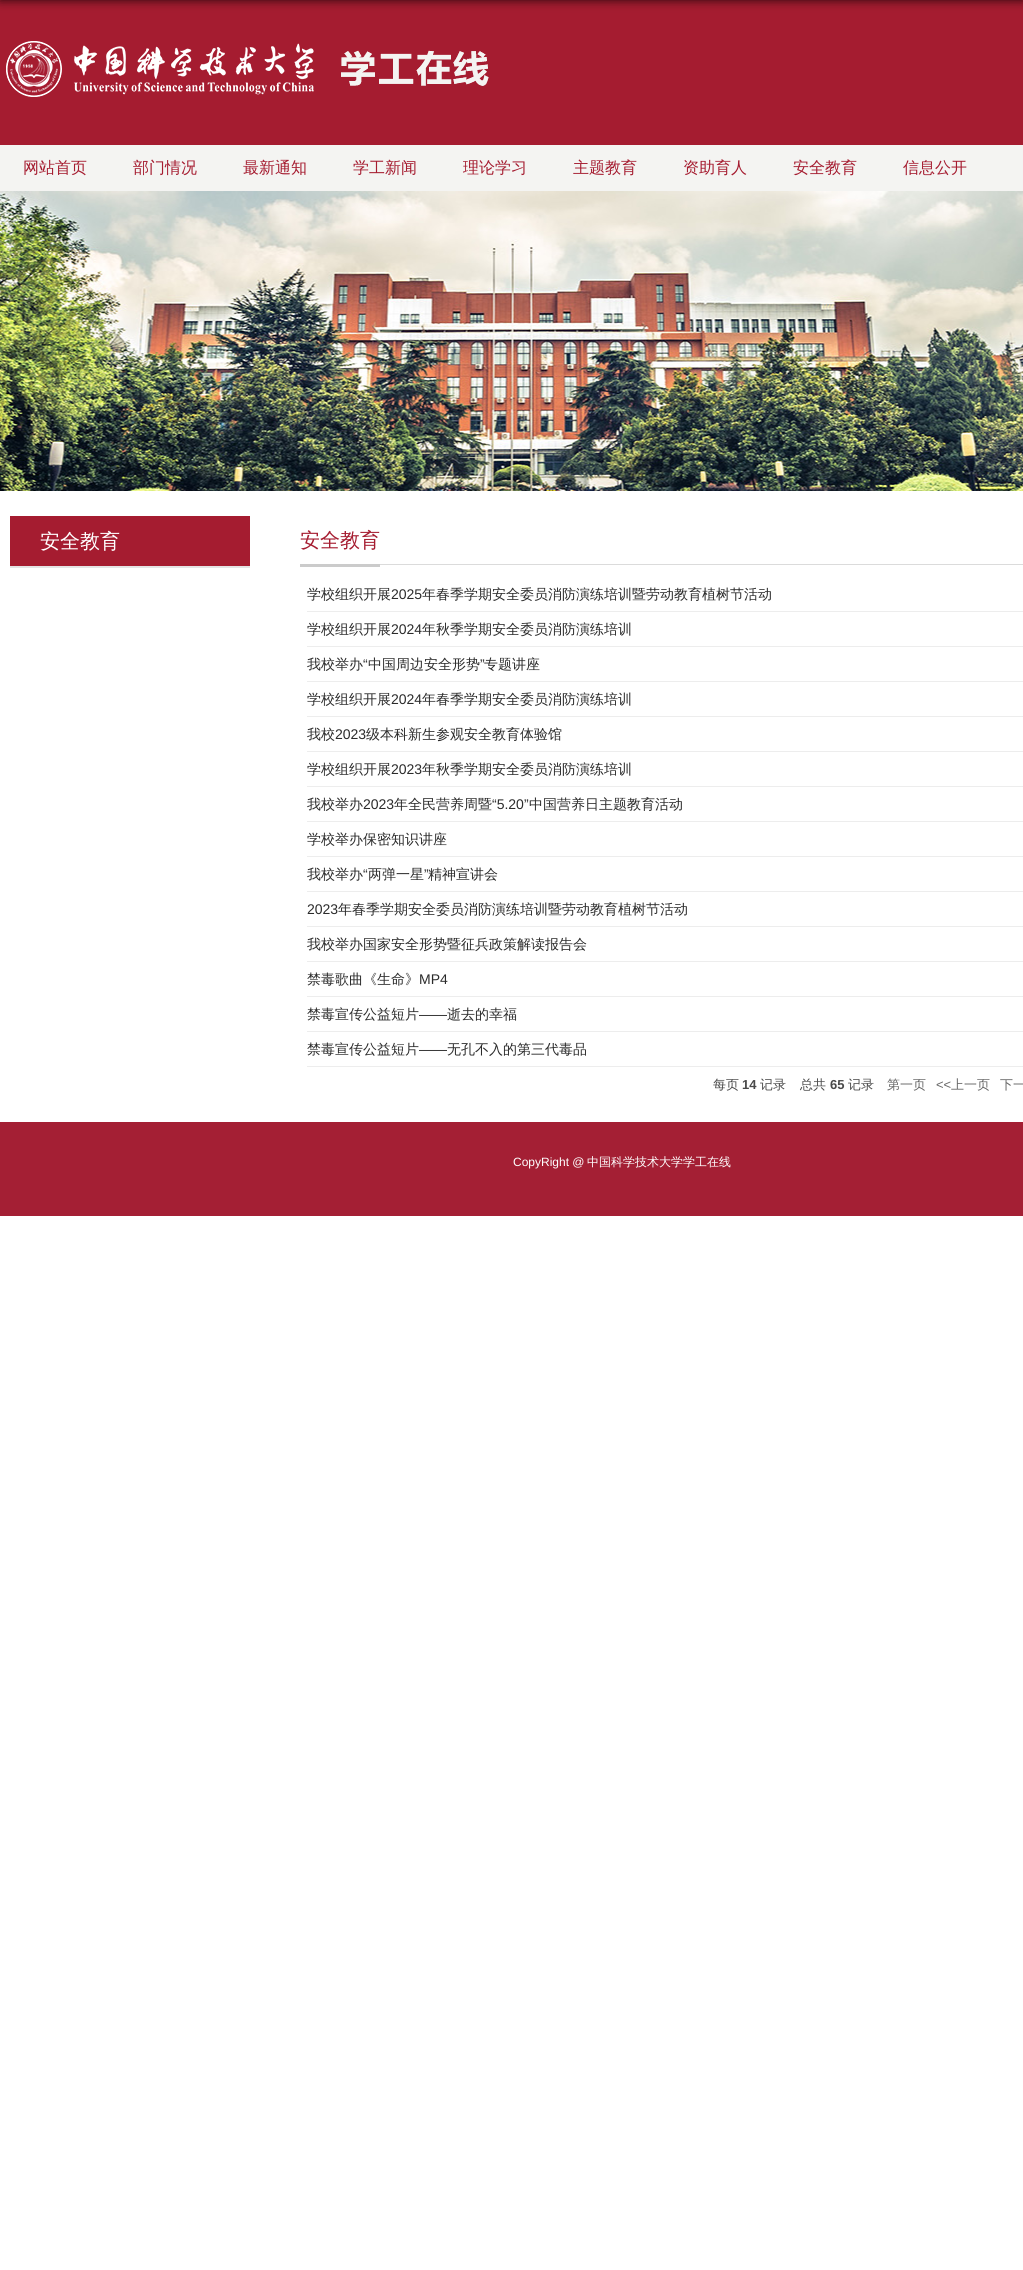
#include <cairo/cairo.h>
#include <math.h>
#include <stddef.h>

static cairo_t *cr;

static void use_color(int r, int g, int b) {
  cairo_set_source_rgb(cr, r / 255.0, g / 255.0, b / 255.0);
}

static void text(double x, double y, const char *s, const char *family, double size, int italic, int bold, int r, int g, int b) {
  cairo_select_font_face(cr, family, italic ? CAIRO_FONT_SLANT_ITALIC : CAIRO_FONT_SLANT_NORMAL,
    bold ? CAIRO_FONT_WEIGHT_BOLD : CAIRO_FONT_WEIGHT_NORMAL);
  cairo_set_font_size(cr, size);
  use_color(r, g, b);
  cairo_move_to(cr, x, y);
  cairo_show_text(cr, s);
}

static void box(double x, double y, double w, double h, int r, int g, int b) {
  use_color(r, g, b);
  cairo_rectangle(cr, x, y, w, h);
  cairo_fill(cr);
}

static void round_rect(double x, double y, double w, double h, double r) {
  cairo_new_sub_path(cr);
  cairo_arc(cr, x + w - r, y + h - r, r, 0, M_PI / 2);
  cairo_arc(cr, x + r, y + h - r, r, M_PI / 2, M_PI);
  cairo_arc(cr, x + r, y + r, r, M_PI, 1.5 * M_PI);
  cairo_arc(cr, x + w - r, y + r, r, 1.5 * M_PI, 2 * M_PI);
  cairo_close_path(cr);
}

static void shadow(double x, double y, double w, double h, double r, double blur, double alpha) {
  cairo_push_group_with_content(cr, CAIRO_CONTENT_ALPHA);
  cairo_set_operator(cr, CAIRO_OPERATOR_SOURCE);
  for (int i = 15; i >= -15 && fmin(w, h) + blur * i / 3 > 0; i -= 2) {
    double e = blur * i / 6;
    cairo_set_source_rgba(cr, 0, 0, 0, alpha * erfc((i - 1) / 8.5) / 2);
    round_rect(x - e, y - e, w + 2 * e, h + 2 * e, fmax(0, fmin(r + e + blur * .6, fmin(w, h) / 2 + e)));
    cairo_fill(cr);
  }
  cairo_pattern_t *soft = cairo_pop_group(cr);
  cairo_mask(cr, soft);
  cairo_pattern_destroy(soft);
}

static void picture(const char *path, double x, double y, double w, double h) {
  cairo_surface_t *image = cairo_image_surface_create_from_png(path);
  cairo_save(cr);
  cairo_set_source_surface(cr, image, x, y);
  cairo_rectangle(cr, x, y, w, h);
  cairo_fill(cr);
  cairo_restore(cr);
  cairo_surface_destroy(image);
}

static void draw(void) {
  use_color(255, 255, 255);
  cairo_paint(cr);
  box(0, 0, 1023, 145, 165, 28, 48);
  picture("img_01.png", 6, 41, 483, 56);
  use_color(0, 0, 0);
  shadow(0, -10, 1023, 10, 0, 5, 0.8);
  box(0, 145, 1023, 46, 244, 244, 242);
  picture("img_02.png", 0, 191, 1023, 300);
  box(10, 516, 240, 50, 165, 28, 48);
  box(10, 566, 240, 2, 228, 228, 228);
  box(380, 564, 643, 1, 219, 219, 219);
  box(300, 564, 80, 3, 203, 203, 203);
  box(307, 611, 716, 1, 237, 237, 237);
  box(307, 646, 716, 1, 237, 237, 237);
  box(307, 681, 716, 1, 237, 237, 237);
  box(307, 716, 716, 1, 237, 237, 237);
  box(307, 751, 716, 1, 237, 237, 237);
  box(307, 786, 716, 1, 237, 237, 237);
  box(307, 821, 716, 1, 237, 237, 237);
  box(307, 856, 716, 1, 237, 237, 237);
  box(307, 891, 716, 1, 237, 237, 237);
  box(307, 926, 716, 1, 237, 237, 237);
  box(307, 961, 716, 1, 237, 237, 237);
  box(307, 996, 716, 1, 237, 237, 237);
  box(307, 1031, 716, 1, 237, 237, 237);
  box(307, 1066, 716, 1, 237, 237, 237);
  box(0, 1122, 1023, 94, 164, 31, 52);
  text(23, 173, "网站首页", "WenQuanYi Zen Hei Medium", 16, 0, 0, 165, 28, 48);
  text(133, 173, "部门情况", "WenQuanYi Zen Hei Medium", 16, 0, 0, 165, 28, 48);
  text(243, 173, "最新通知", "WenQuanYi Zen Hei Medium", 16, 0, 0, 165, 28, 48);
  text(353, 173, "学工新闻", "WenQuanYi Zen Hei Medium", 16, 0, 0, 165, 28, 48);
  text(463, 173, "理论学习", "WenQuanYi Zen Hei Medium", 16, 0, 0, 165, 28, 48);
  text(573, 173, "主题教育", "WenQuanYi Zen Hei Medium", 16, 0, 0, 165, 28, 48);
  text(683, 173, "资助育人", "WenQuanYi Zen Hei Medium", 16, 0, 0, 165, 28, 48);
  text(793, 173, "安全教育", "WenQuanYi Zen Hei Medium", 16, 0, 0, 165, 28, 48);
  text(903, 173, "信息公开", "WenQuanYi Zen Hei Medium", 16, 0, 0, 165, 28, 48);
  text(40, 548, "安全教育", "WenQuanYi Zen Hei Medium", 20, 0, 0, 255, 255, 255);
  text(300, 547, "安全教育", "WenQuanYi Zen Hei Medium", 20, 0, 0, 165, 28, 48);
  text(307, 599, "学校组织开展", "WenQuanYi Zen Hei Medium", 14, 0, 0, 43, 43, 43);
  text(391, 599, "2025", "Liberation Sans", 14, 0, 0, 43, 43, 43);
  text(422, 599, "年春季学期安全委员消防演练培训暨劳动教育植树节活动", "WenQuanYi Zen Hei Medium", 14, 0, 0, 43, 43, 43);
  text(307, 634, "学校组织开展", "WenQuanYi Zen Hei Medium", 14, 0, 0, 43, 43, 43);
  text(391, 634, "2024", "Liberation Sans", 14, 0, 0, 43, 43, 43);
  text(422, 634, "年秋季学期安全委员消防演练培训", "WenQuanYi Zen Hei Medium", 14, 0, 0, 43, 43, 43);
  text(307, 669, "我校举办", "WenQuanYi Zen Hei Medium", 14, 0, 0, 43, 43, 43);
  text(363, 669, "“", "Liberation Sans", 14, 0, 0, 43, 43, 43);
  text(368, 669, "中国周边安全形势", "WenQuanYi Zen Hei Medium", 14, 0, 0, 43, 43, 43);
  text(480, 669, "”", "Liberation Sans", 14, 0, 0, 43, 43, 43);
  text(484, 669, "专题讲座", "WenQuanYi Zen Hei Medium", 14, 0, 0, 43, 43, 43);
  text(307, 704, "学校组织开展", "WenQuanYi Zen Hei Medium", 14, 0, 0, 43, 43, 43);
  text(391, 704, "2024", "Liberation Sans", 14, 0, 0, 43, 43, 43);
  text(422, 704, "年春季学期安全委员消防演练培训", "WenQuanYi Zen Hei Medium", 14, 0, 0, 43, 43, 43);
  text(307, 739, "我校", "WenQuanYi Zen Hei Medium", 14, 0, 0, 43, 43, 43);
  text(335, 739, "2023", "Liberation Sans", 14, 0, 0, 43, 43, 43);
  text(366, 739, "级本科新生参观安全教育体验馆", "WenQuanYi Zen Hei Medium", 14, 0, 0, 43, 43, 43);
  text(307, 774, "学校组织开展", "WenQuanYi Zen Hei Medium", 14, 0, 0, 43, 43, 43);
  text(391, 774, "2023", "Liberation Sans", 14, 0, 0, 43, 43, 43);
  text(422, 774, "年秋季学期安全委员消防演练培训", "WenQuanYi Zen Hei Medium", 14, 0, 0, 43, 43, 43);
  text(307, 809, "我校举办", "WenQuanYi Zen Hei Medium", 14, 0, 0, 43, 43, 43);
  text(363, 809, "2023", "Liberation Sans", 14, 0, 0, 43, 43, 43);
  text(394, 809, "年全民营养周暨", "WenQuanYi Zen Hei Medium", 14, 0, 0, 43, 43, 43);
  text(492, 809, "“5.20”", "Liberation Sans", 14, 0, 0, 43, 43, 43);
  text(529, 809, "中国营养日主题教育活动", "WenQuanYi Zen Hei Medium", 14, 0, 0, 43, 43, 43);
  text(307, 844, "学校举办保密知识讲座", "WenQuanYi Zen Hei Medium", 14, 0, 0, 43, 43, 43);
  text(307, 879, "我校举办", "WenQuanYi Zen Hei Medium", 14, 0, 0, 43, 43, 43);
  text(363, 879, "“", "Liberation Sans", 14, 0, 0, 43, 43, 43);
  text(368, 879, "两弹一星", "WenQuanYi Zen Hei Medium", 14, 0, 0, 43, 43, 43);
  text(424, 879, "”", "Liberation Sans", 14, 0, 0, 43, 43, 43);
  text(428, 879, "精神宣讲会", "WenQuanYi Zen Hei Medium", 14, 0, 0, 43, 43, 43);
  text(307, 914, "2023", "Liberation Sans", 14, 0, 0, 43, 43, 43);
  text(338, 914, "年春季学期安全委员消防演练培训暨劳动教育植树节活动", "WenQuanYi Zen Hei Medium", 14, 0, 0, 43, 43, 43);
  text(307, 949, "我校举办国家安全形势暨征兵政策解读报告会", "WenQuanYi Zen Hei Medium", 14, 0, 0, 43, 43, 43);
  text(307, 984, "禁毒歌曲《生命》", "WenQuanYi Zen Hei Medium", 14, 0, 0, 43, 43, 43);
  text(419, 984, "MP4", "Liberation Sans", 14, 0, 0, 43, 43, 43);
  text(307, 1019, "禁毒宣传公益短片", "WenQuanYi Zen Hei Medium", 14, 0, 0, 43, 43, 43);
  text(419, 1019, "——", "Liberation Sans", 14, 0, 0, 43, 43, 43);
  text(447, 1019, "逝去的幸福", "WenQuanYi Zen Hei Medium", 14, 0, 0, 43, 43, 43);
  text(307, 1054, "禁毒宣传公益短片", "WenQuanYi Zen Hei Medium", 14, 0, 0, 43, 43, 43);
  text(419, 1054, "——", "Liberation Sans", 14, 0, 0, 43, 43, 43);
  text(447, 1054, "无孔不入的第三代毒品", "WenQuanYi Zen Hei Medium", 14, 0, 0, 43, 43, 43);
  text(713, 1089, "每页", "WenQuanYi Zen Hei Medium", 13, 0, 0, 73, 73, 73);
  text(742, 1089, "14", "Liberation Sans", 13, 0, 1, 73, 73, 73);
  text(760, 1089, "记录", "WenQuanYi Zen Hei Medium", 13, 0, 0, 73, 73, 73);
  text(800, 1089, "总共", "WenQuanYi Zen Hei Medium", 13, 0, 0, 73, 73, 73);
  text(830, 1089, "65", "Liberation Sans", 13, 0, 1, 73, 73, 73);
  text(848, 1089, "记录", "WenQuanYi Zen Hei Medium", 13, 0, 0, 73, 73, 73);
  text(887, 1089, "第一页", "WenQuanYi Zen Hei Medium", 13, 0, 0, 102, 102, 102);
  text(936, 1089, "<<", "Liberation Sans", 13, 0, 0, 102, 102, 102);
  text(951, 1089, "上一页", "WenQuanYi Zen Hei Medium", 13, 0, 0, 102, 102, 102);
  text(1000, 1089, "下一", "WenQuanYi Zen Hei Medium", 13, 0, 0, 102, 102, 102);
  text(513, 1166, "CopyRight @", "Liberation Sans", 12, 0, 0, 255, 255, 255);
  text(587, 1166, "中国科学技术大学学工在线", "WenQuanYi Zen Hei Medium", 12, 0, 0, 255, 255, 255);
}

int main(void) {
  cairo_surface_t *surface = cairo_image_surface_create(CAIRO_FORMAT_RGB24, 1023, 2270);
  cr = cairo_create(surface);
  cairo_font_options_t *options = cairo_font_options_create();
  cairo_font_options_set_hint_metrics(options, CAIRO_HINT_METRICS_OFF);
  cairo_font_options_set_hint_style(options, CAIRO_HINT_STYLE_NONE);
  cairo_set_font_options(cr, options);
  cairo_set_miter_limit(cr, 4);
  draw();
  cairo_surface_write_to_png(surface, "out.png");
  cairo_font_options_destroy(options);
  cairo_destroy(cr);
  cairo_surface_destroy(surface);
  return 0;
}
